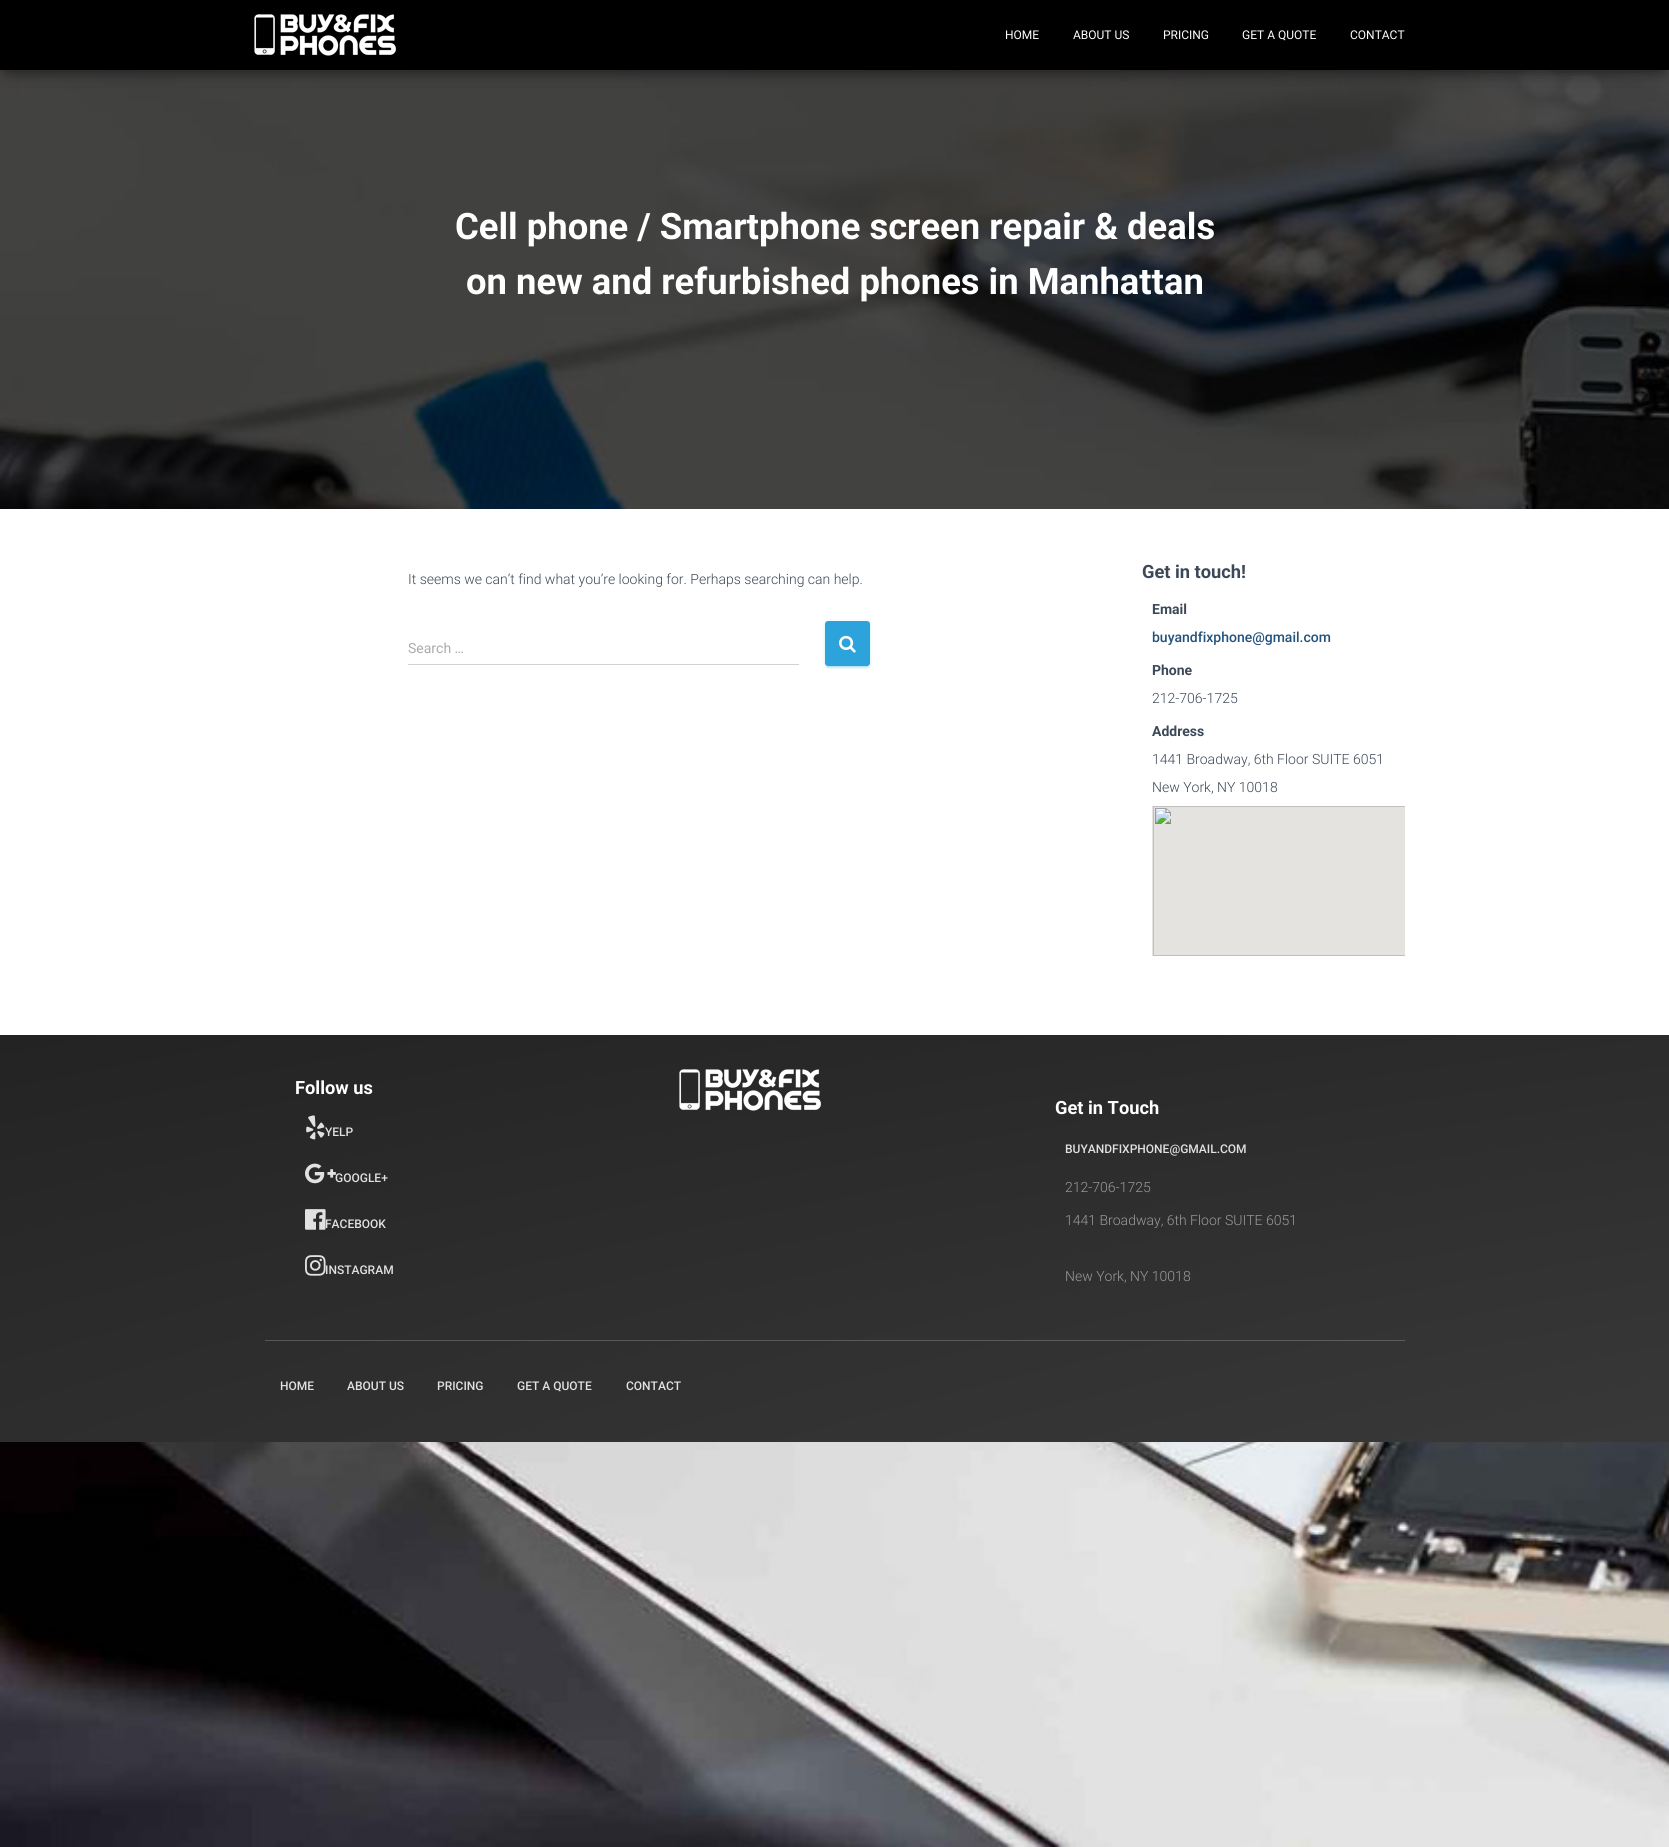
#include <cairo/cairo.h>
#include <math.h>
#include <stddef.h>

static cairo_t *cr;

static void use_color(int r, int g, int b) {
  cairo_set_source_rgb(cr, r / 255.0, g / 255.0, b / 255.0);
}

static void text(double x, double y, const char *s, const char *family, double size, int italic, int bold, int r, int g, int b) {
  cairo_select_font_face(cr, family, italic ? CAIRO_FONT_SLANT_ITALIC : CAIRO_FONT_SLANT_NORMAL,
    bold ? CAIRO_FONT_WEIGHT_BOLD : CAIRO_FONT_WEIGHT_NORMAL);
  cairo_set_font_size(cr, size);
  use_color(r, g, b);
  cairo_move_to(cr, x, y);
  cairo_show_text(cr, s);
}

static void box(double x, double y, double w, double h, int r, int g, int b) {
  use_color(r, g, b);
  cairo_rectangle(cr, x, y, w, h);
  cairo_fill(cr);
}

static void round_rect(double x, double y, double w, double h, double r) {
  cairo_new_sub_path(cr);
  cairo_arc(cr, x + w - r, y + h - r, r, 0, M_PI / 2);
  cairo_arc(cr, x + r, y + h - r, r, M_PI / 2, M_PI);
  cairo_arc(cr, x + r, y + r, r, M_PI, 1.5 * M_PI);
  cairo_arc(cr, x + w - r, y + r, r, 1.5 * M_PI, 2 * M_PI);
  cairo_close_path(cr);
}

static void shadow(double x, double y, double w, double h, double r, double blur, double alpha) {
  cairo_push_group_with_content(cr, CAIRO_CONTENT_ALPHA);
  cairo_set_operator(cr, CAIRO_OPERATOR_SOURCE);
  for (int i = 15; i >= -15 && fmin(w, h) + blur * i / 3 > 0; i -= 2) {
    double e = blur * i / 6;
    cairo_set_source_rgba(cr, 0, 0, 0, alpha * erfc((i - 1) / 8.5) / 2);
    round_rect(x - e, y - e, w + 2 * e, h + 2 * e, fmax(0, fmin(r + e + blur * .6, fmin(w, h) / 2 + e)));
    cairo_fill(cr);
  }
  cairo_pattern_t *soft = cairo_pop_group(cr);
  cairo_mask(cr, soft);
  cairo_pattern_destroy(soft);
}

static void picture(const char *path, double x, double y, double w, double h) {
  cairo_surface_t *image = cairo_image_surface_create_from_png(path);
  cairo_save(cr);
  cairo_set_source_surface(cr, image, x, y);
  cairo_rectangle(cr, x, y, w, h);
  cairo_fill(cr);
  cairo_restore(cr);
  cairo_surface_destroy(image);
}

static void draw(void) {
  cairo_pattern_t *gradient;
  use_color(255, 255, 255);
  cairo_paint(cr);
  picture("img_01.png", 0, 70, 1669, 1777);
  cairo_set_source_rgba(cr, 0, 0, 0, 0.7);
  cairo_rectangle(cr, 0, 70, 1669, 439);
  cairo_fill(cr);
  use_color(0, 0, 0);
  shadow(5, 13, 1659, 60, 0, 5, 0.2);
  shadow(0, 3, 1669, 70, 0, 10, 0.12);
  shadow(12, 22, 1645, 46, 0, 10, 0.42);
  box(0, 0, 1669, 70, 0, 0, 0);
  picture("img_02.png", 254, 14, 143, 42);
  box(0, 509, 1669, 526, 255, 255, 255);
  use_color(45, 163, 220);
  shadow(825, 622, 45, 45, 3, 2.5, 0.12);
  shadow(827, 626, 41, 41, 1, 0.5, 0.2);
  shadow(825, 623, 45, 45, 3, 1, 0.14);
  use_color(45, 163, 220);
  round_rect(825, 621, 45, 45, 3);
  cairo_fill(cr);
  box(408, 664, 391, 1, 210, 210, 210);
  picture("img_03.png", 839, 635, 17, 18);
  picture("img_04.png", 1152, 806, 253, 150);
  gradient = cairo_pattern_create_radial(0, 0, 0, 0, 0, 1);
  cairo_pattern_set_matrix(gradient, &(cairo_matrix_t){1.0 / 6491, 0, 0, 1.0 / 1295, -1.0 * 4590 / 6491, -1.0 * 1951 / 1295});
  cairo_pattern_add_color_stop_rgba(gradient, 0, 0.345, 0.345, 0.345, 1);
  cairo_pattern_add_color_stop_rgba(gradient, 1, 0.137, 0.137, 0.137, 1);
  cairo_set_source(cr, gradient);
  cairo_pattern_destroy(gradient);
  cairo_rectangle(cr, 0, 1035, 1669, 407);
  cairo_fill(cr);
  picture("img_05.png", 306, 1115, 19, 25);
  picture("img_06.png", 305, 1163, 31, 21);
  picture("img_07.png", 305, 1209, 21, 21);
  picture("img_08.png", 305, 1255, 21, 21);
  picture("img_09.png", 679, 1069, 143, 42);
  cairo_set_source_rgba(cr, 1, 1, 1, 0.2);
  cairo_rectangle(cr, 265, 1340, 1140, 1);
  cairo_fill(cr);
  text(1005, 39, "HOME", "Roboto", 12, 0, 0, 255, 255, 255);
  text(1073, 39, "ABOUT US", "Roboto", 12, 0, 0, 255, 255, 255);
  text(1163, 39, "PRICING", "Roboto", 12, 0, 0, 255, 255, 255);
  text(1242, 39, "GET A QUOTE", "Roboto", 12, 0, 0, 255, 255, 255);
  text(1350, 39, "CONTACT", "Roboto", 12, 0, 0, 255, 255, 255);
  text(455, 239, "Cell phone / Smartphone screen repair & deals", "Roboto", 36.4, 0, 1, 255, 255, 255);
  text(466, 294, "on new and refurbished phones in Manhattan", "Roboto", 36.4, 0, 1, 255, 255, 255);
  text(408, 584, "It seems we can’t find what you’re looking for. Perhaps searching can help.", "Roboto Light", 14, 0, 0, 60, 72, 88);
  text(408, 653, "Search …", "Roboto", 14, 0, 0, 170, 170, 170);
  text(1142, 578, "Get in touch!", "Roboto", 18.25, 0, 1, 60, 72, 88);
  text(1152, 614, "Email", "Roboto", 14, 0, 1, 60, 72, 88);
  text(1152, 642, "buyandfixphone@gmail.com", "Roboto Medium", 14, 0, 0, 35, 82, 124);
  text(1152, 675, "Phone", "Roboto", 14, 0, 1, 60, 72, 88);
  text(1152, 703, "212-706-1725", "Roboto Light", 14, 0, 0, 60, 72, 88);
  text(1152, 736, "Address", "Roboto", 14, 0, 1, 60, 72, 88);
  text(1152, 764, "1441 Broadway, 6th Floor SUITE 6051", "Roboto Light", 14, 0, 0, 60, 72, 88);
  text(1152, 792, "New York, NY 10018", "Roboto Light", 14, 0, 0, 60, 72, 88);
  text(295, 1094, "Follow us", "Roboto", 18.25, 0, 1, 255, 255, 255);
  text(325, 1136, "YELP", "Roboto Medium", 12, 0, 0, 225, 225, 225);
  text(335, 1182, "GOOGLE+", "Roboto Medium", 12, 0, 0, 225, 225, 225);
  text(325, 1228, "FACEBOOK", "Roboto Medium", 12, 0, 0, 225, 225, 225);
  text(325, 1274, "INSTAGRAM", "Roboto Medium", 12, 0, 0, 225, 225, 225);
  text(1055, 1114, "Get in Touch", "Roboto", 18.25, 0, 1, 255, 255, 255);
  text(1065, 1153, "BUYANDFIXPHONE@GMAIL.COM", "Roboto Medium", 12, 0, 0, 225, 225, 225);
  text(1065, 1192, "212-706-1725", "Roboto Light", 14, 0, 0, 153, 153, 153);
  text(1065, 1225, "1441 Broadway, 6th Floor SUITE 6051", "Roboto Light", 14, 0, 0, 153, 153, 153);
  text(1065, 1281, "New York, NY 10018", "Roboto Light", 14, 0, 0, 153, 153, 153);
  text(280, 1390, "HOME", "Roboto Medium", 12, 0, 0, 225, 225, 225);
  text(347, 1390, "ABOUT US", "Roboto Medium", 12, 0, 0, 225, 225, 225);
  text(437, 1390, "PRICING", "Roboto Medium", 12, 0, 0, 225, 225, 225);
  text(517, 1390, "GET A QUOTE", "Roboto Medium", 12, 0, 0, 225, 225, 225);
  text(626, 1390, "CONTACT", "Roboto Medium", 12, 0, 0, 225, 225, 225);
}

int main(void) {
  cairo_surface_t *surface = cairo_image_surface_create(CAIRO_FORMAT_RGB24, 1669, 1847);
  cr = cairo_create(surface);
  cairo_font_options_t *options = cairo_font_options_create();
  cairo_font_options_set_hint_metrics(options, CAIRO_HINT_METRICS_OFF);
  cairo_font_options_set_hint_style(options, CAIRO_HINT_STYLE_NONE);
  cairo_set_font_options(cr, options);
  cairo_set_miter_limit(cr, 4);
  draw();
  cairo_surface_write_to_png(surface, "out.png");
  cairo_font_options_destroy(options);
  cairo_destroy(cr);
  cairo_surface_destroy(surface);
  return 0;
}
